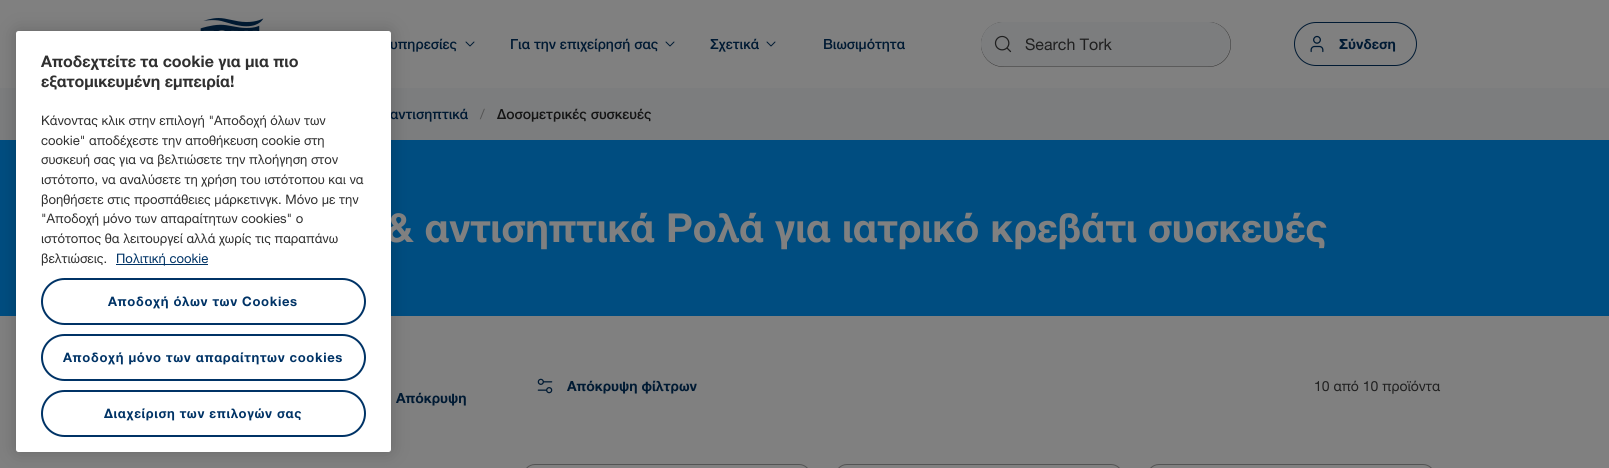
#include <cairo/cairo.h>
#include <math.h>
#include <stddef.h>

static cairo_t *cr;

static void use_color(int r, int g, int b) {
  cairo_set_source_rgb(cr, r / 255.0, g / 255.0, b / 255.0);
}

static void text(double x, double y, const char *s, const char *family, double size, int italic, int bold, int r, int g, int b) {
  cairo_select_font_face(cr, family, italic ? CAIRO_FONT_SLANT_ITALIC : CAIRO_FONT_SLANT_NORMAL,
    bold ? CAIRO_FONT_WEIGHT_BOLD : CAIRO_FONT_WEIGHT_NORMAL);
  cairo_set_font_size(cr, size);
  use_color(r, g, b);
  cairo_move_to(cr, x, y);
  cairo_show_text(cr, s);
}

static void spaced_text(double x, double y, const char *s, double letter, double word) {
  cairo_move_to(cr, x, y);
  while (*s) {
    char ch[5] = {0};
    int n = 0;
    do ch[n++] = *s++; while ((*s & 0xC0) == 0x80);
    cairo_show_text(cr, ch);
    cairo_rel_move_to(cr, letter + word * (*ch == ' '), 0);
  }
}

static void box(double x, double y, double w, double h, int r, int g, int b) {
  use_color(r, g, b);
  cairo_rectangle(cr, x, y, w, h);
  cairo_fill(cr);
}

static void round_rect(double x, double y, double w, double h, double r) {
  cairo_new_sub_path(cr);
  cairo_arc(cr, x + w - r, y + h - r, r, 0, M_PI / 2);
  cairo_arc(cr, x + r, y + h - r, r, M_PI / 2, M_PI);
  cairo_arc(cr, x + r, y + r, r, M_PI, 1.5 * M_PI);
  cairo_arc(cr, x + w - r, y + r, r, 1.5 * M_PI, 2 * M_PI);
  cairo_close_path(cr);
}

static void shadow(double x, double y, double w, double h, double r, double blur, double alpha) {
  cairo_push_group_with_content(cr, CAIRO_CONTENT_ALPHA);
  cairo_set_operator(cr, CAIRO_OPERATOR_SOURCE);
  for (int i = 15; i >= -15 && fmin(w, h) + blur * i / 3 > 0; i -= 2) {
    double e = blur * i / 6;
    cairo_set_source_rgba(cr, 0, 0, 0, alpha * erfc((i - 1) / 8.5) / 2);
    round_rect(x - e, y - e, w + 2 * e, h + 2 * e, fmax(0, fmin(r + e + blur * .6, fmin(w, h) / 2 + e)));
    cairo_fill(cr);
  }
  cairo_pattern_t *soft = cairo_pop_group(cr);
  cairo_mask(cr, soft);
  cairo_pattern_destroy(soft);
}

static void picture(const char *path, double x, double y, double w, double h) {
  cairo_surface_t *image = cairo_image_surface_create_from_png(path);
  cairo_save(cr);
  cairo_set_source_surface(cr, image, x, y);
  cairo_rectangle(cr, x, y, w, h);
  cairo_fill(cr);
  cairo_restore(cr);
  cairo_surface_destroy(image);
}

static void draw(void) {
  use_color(128, 128, 128);
  cairo_paint(cr);
  picture("img_01.png", 200, 18, 64, 13);
  box(0, 88, 1609, 52, 124, 125, 126);
  box(0, 140, 1609, 176, 0, 77, 128);
  use_color(0, 0, 0);
  shadow(16, 31, 375, 421, 2.5, 9, 0.2);
  picture("img_02.png", 465, 41, 10, 6);
  picture("img_02.png", 665, 41, 10, 6);
  picture("img_02.png", 766, 41, 10, 6);
  round_rect(981.25, 22.25, 249.5, 44.5, 22.25);
  use_color(49, 49, 49);
  cairo_set_line_width(cr, 0.5);
  cairo_stroke(cr);
  use_color(124, 125, 126);
  round_rect(981, 22, 249, 44, 22);
  cairo_fill(cr);
  picture("img_03.png", 994, 35, 18, 18);
  round_rect(1294.5, 22.5, 122, 43, 21.5);
  use_color(0, 26, 51);
  cairo_set_line_width(cr, 1);
  cairo_stroke(cr);
  picture("img_04.png", 1310, 35, 14, 18);
  picture("img_05.png", 537, 378, 16, 16);
  round_rect(523.5, 464.5, 287, 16, 11.5);
  use_color(84, 84, 84);
  cairo_stroke(cr);
  round_rect(835.5, 464.5, 287, 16, 11.5);
  cairo_stroke(cr);
  round_rect(1147.5, 464.5, 287, 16, 11.5);
  cairo_stroke(cr);
  text(390, 49, "υπηρεσίες", "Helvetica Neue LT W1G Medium", 14, 0, 0, 0, 26, 51);
  text(510, 49, "Για την επιχείρησή σας", "Helvetica Neue LT W1G Medium", 14, 0, 0, 0, 26, 51);
  text(710, 49, "Σχετικά", "Helvetica Neue LT W1G Medium", 14, 0, 0, 0, 26, 51);
  text(823, 49, "Βιωσιμότητα", "Helvetica Neue LT W1G Medium", 14, 0, 0, 0, 26, 51);
  text(1025, 50, "Search Tork", "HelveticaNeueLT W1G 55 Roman", 16, 0, 0, 32, 32, 32);
  text(1339, 49, "Σύνδεση", "Helvetica Neue LT W1G", 14, 0, 1, 0, 26, 51);
  text(390, 119, "αντισηπτικά", "Helvetica Neue LT W1G Medium", 14, 0, 0, 0, 26, 51);
  text(480, 119, "/", "HelveticaNeueLT W1G 55 Roman", 14, 0, 0, 84, 84, 84);
  text(497, 119, "Δοσομετρικές συσκευές", "Helvetica Neue LT W1G Medium", 14, 0, 0, 20, 20, 20);
  text(386, 242, "& αντισηπτικά Ρολά για ιατρικό κρεβάτι συσκευές", "Helvetica Neue LT W1G", 40, 0, 1, 128, 128, 128);
  use_color(255, 255, 255);
  round_rect(16, 31, 375, 421, 2.5);
  cairo_fill(cr);
  round_rect(42, 391, 323, 45, 22.5);
  use_color(0, 51, 102);
  cairo_set_line_width(cr, 2);
  cairo_stroke(cr);
  cairo_set_font_size(cr, 13.1);
  spaced_text(104, 418, "Διαχείριση των επιλογών σας", 0.65, 0);
  round_rect(42, 335, 323, 45, 22.5);
  cairo_stroke(cr);
  spaced_text(63, 362, "Αποδοχή μόνο των απαραίτητων cookies", 0.65, 0);
  round_rect(42, 279, 323, 45, 22.5);
  cairo_stroke(cr);
  spaced_text(108, 306, "Αποδοχή όλων των Cookies", 0.65, 0);
  box(116, 264, 92, 1, 0, 51, 102);
  text(116, 263, "Πολιτική cookie", "HelveticaNeueLT W1G 55 Roman", 13.1, 0, 0, 0, 51, 102);
  text(41, 263, "βελτιώσεις.", "HelveticaNeueLT W1G 55 Roman", 13.1, 0, 0, 48, 48, 48);
  text(41, 243, "ιστότοπος θα λειτουργεί αλλά χωρίς τις παραπάνω", "HelveticaNeueLT W1G 55 Roman", 13.1, 0, 0, 48, 48, 48);
  text(41, 223, "\"Αποδοχή μόνο των απαραίτητων cookies\" ο", "HelveticaNeueLT W1G 55 Roman", 13.1, 0, 0, 48, 48, 48);
  text(41, 204, "βοηθήσετε στις προσπάθειες μάρκετινγκ. Μόνο με την", "HelveticaNeueLT W1G 55 Roman", 13.1, 0, 0, 48, 48, 48);
  text(41, 184, "ιστότοπο, να αναλύσετε τη χρήση του ιστότοπου και να", "HelveticaNeueLT W1G 55 Roman", 13.1, 0, 0, 48, 48, 48);
  text(41, 164, "συσκευή σας για να βελτιώσετε την πλοήγηση στον", "HelveticaNeueLT W1G 55 Roman", 13.1, 0, 0, 48, 48, 48);
  text(41, 145, "cookie\" αποδέχεστε την αποθήκευση cookie στη", "HelveticaNeueLT W1G 55 Roman", 13.1, 0, 0, 48, 48, 48);
  text(41, 125, "Κάνοντας κλικ στην επιλογή \"Αποδοχή όλων των", "HelveticaNeueLT W1G 55 Roman", 13.1, 0, 0, 48, 48, 48);
  text(41, 87, "εξατομικευμένη εμπειρία!", "Helvetica Neue LT W1G", 16, 0, 1, 48, 48, 48);
  text(41, 67, "Αποδεχτείτε τα cookie για μια πιο", "Helvetica Neue LT W1G", 16, 0, 1, 48, 48, 48);
  text(567, 391, "Απόκρυψη φίλτρων", "Helvetica Neue LT W1G", 14, 0, 1, 0, 26, 51);
  text(1314, 391, "10 από 10 προϊόντα", "HelveticaNeueLT W1G 55 Roman", 14, 0, 0, 32, 32, 32);
  text(396, 403, "Απόκρυψη", "Helvetica Neue LT W1G", 14, 0, 1, 0, 26, 51);
}

int main(void) {
  cairo_surface_t *surface = cairo_image_surface_create(CAIRO_FORMAT_RGB24, 1609, 468);
  cr = cairo_create(surface);
  cairo_font_options_t *options = cairo_font_options_create();
  cairo_font_options_set_hint_metrics(options, CAIRO_HINT_METRICS_OFF);
  cairo_font_options_set_hint_style(options, CAIRO_HINT_STYLE_NONE);
  cairo_set_font_options(cr, options);
  cairo_set_miter_limit(cr, 4);
  draw();
  cairo_surface_write_to_png(surface, "out.png");
  cairo_font_options_destroy(options);
  cairo_destroy(cr);
  cairo_surface_destroy(surface);
  return 0;
}
